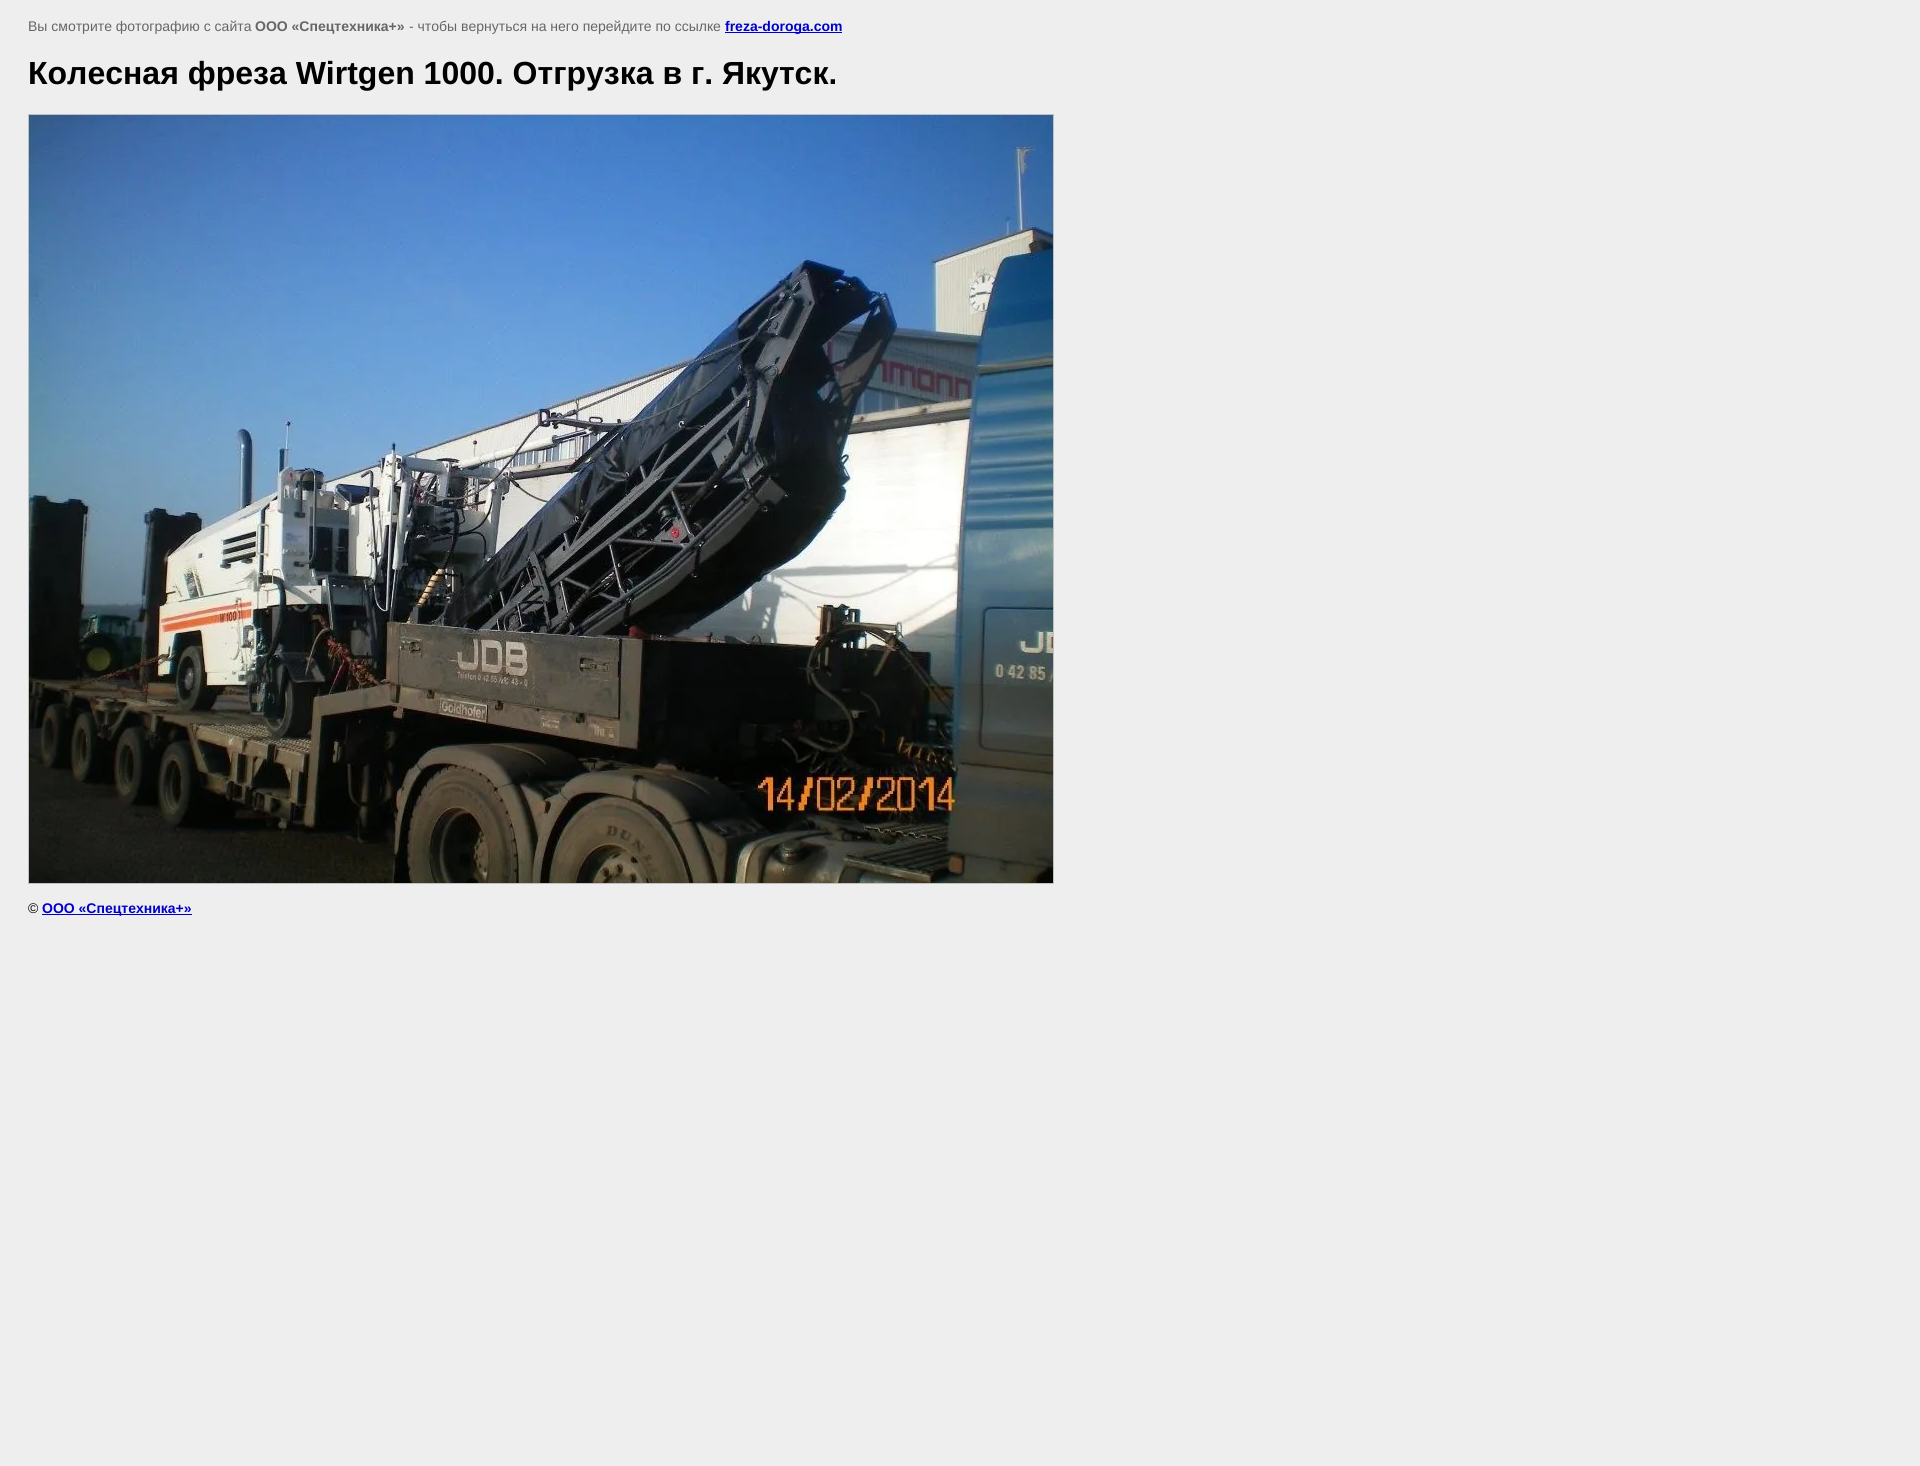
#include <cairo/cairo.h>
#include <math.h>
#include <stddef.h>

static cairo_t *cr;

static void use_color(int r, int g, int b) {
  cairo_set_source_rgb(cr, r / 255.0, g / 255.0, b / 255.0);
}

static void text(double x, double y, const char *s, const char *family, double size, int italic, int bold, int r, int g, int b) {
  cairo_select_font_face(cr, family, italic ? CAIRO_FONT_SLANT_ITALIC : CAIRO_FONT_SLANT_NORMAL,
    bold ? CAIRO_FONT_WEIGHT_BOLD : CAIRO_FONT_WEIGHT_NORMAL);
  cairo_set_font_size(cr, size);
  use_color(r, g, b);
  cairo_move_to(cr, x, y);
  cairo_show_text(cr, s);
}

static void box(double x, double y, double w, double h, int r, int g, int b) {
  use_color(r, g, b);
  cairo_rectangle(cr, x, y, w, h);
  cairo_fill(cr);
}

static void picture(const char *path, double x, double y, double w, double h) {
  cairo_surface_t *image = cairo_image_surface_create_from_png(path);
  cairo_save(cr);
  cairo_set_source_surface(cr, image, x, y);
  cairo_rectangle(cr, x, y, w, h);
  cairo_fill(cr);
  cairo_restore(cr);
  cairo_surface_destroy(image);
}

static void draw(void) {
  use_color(238, 238, 238);
  cairo_paint(cr);
  box(725, 32, 117, 1, 0, 0, 204);
  cairo_rectangle(cr, 28.5, 114.5, 1025, 769);
  use_color(192, 192, 192);
  cairo_set_line_width(cr, 1);
  cairo_stroke(cr);
  picture("img_01.png", 29, 115, 1024, 768);
  box(42, 914, 150, 1, 0, 0, 204);
  text(28, 31, "Вы смотрите фотографию с сайта", "Liberation Sans", 14, 0, 0, 102, 102, 102);
  text(255, 31, "ООО «Спецтехника+»", "Liberation Sans", 14, 0, 1, 102, 102, 102);
  text(409, 31, "- чтобы вернуться на него перейдите по ссылке", "Liberation Sans", 14, 0, 0, 102, 102, 102);
  text(725, 31, "freza-doroga.com", "Liberation Sans", 14, 0, 1, 0, 0, 204);
  text(28, 84, "Колесная фреза Wirtgen 1000. Отгрузка в г. Якутск.", "Liberation Sans", 32, 0, 1, 0, 0, 0);
  text(28, 913, "©", "Liberation Sans", 14, 0, 0, 0, 0, 0);
  text(42, 913, "ООО «Спецтехника+»", "Liberation Sans", 14, 0, 1, 0, 0, 204);
}

int main(void) {
  cairo_surface_t *surface = cairo_image_surface_create(CAIRO_FORMAT_RGB24, 1920, 1466);
  cr = cairo_create(surface);
  cairo_font_options_t *options = cairo_font_options_create();
  cairo_font_options_set_hint_metrics(options, CAIRO_HINT_METRICS_OFF);
  cairo_font_options_set_hint_style(options, CAIRO_HINT_STYLE_NONE);
  cairo_set_font_options(cr, options);
  cairo_set_miter_limit(cr, 4);
  draw();
  cairo_surface_write_to_png(surface, "out.png");
  cairo_font_options_destroy(options);
  cairo_destroy(cr);
  cairo_surface_destroy(surface);
  return 0;
}
